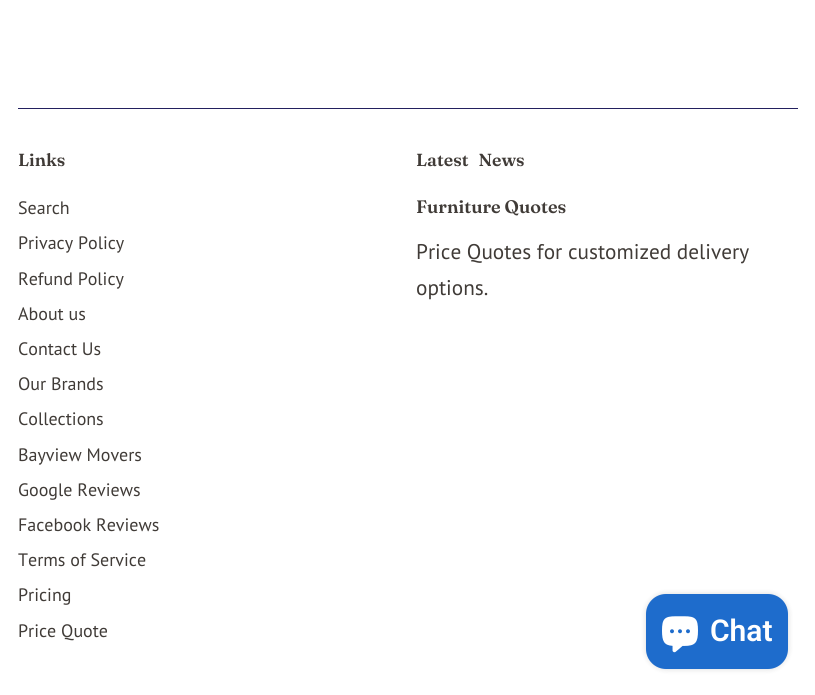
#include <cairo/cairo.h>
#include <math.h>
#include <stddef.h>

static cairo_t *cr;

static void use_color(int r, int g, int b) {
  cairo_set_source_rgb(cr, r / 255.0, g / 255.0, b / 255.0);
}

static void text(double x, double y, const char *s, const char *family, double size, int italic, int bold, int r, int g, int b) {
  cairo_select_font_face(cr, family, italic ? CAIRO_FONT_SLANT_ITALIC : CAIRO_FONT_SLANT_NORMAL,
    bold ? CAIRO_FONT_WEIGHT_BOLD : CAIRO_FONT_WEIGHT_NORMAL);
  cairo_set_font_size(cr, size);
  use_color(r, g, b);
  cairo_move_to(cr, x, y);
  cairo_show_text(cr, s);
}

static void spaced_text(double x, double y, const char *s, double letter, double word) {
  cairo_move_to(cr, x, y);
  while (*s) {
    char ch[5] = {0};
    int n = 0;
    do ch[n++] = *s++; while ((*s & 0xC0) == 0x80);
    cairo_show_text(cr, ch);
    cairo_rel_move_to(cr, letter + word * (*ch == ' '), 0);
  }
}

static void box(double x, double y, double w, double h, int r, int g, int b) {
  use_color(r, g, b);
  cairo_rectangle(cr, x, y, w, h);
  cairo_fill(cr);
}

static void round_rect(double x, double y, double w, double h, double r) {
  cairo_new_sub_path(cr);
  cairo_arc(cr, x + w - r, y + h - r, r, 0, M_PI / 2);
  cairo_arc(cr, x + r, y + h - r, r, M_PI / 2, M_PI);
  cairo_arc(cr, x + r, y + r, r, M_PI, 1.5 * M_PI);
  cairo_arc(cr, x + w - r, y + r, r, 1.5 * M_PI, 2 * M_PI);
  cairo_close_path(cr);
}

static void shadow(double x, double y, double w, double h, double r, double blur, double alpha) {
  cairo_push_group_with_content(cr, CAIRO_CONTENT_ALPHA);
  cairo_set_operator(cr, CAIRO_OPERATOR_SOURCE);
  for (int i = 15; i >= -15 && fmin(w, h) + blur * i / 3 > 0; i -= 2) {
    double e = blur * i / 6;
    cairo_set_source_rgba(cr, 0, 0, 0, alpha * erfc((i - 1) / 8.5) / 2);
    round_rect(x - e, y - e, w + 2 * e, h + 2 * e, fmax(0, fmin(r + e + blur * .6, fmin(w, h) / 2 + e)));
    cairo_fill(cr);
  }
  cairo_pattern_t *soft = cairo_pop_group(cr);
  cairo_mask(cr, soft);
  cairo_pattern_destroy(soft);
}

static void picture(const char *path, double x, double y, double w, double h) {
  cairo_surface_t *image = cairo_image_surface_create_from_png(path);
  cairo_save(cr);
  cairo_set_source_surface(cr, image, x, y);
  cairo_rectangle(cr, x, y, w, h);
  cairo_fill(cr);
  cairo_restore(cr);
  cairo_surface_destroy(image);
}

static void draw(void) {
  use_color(255, 255, 255);
  cairo_paint(cr);
  box(18, 108, 780, 1, 35, 32, 94);
  use_color(0, 0, 0);
  shadow(646, 594, 142, 75, 20, 3, 0.15);
  use_color(30, 108, 204);
  round_rect(646, 594, 142, 75, 20);
  cairo_fill(cr);
  picture("img_01.png", 662, 616, 36, 37);
  text(18, 166, "Links", "Fraunces SemiBold", 17.5, 0, 0, 64, 59, 55);
  text(18, 214, "Search", "PT Sans", 18, 0, 0, 64, 59, 55);
  text(18, 249, "Privacy Policy", "PT Sans", 18, 0, 0, 64, 59, 55);
  text(18, 285, "Refund Policy", "PT Sans", 18, 0, 0, 64, 59, 55);
  text(18, 320, "About us", "PT Sans", 18, 0, 0, 64, 59, 55);
  text(18, 355, "Contact Us", "PT Sans", 18, 0, 0, 64, 59, 55);
  text(18, 390, "Our Brands", "PT Sans", 18, 0, 0, 64, 59, 55);
  text(18, 425, "Collections", "PT Sans", 18, 0, 0, 64, 59, 55);
  text(18, 461, "Bayview Movers", "PT Sans", 18, 0, 0, 64, 59, 55);
  text(18, 496, "Google Reviews", "PT Sans", 18, 0, 0, 64, 59, 55);
  text(18, 531, "Facebook Reviews", "PT Sans", 18, 0, 0, 64, 59, 55);
  text(18, 566, "Terms of Service", "PT Sans", 18, 0, 0, 64, 59, 55);
  text(18, 601, "Pricing", "PT Sans", 18, 0, 0, 64, 59, 55);
  text(18, 637, "Price Quote", "PT Sans", 18, 0, 0, 64, 59, 55);
  cairo_select_font_face(cr, "Fraunces SemiBold", CAIRO_FONT_SLANT_NORMAL, CAIRO_FONT_WEIGHT_NORMAL);
  cairo_set_font_size(cr, 17.5);
  spaced_text(416, 166, "Latest News", 0, 6);
  text(416, 213, "Furniture Quotes", "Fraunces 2 SemiBold", 18, 0, 0, 64, 59, 55);
  text(416, 259, "Price Quotes for customized delivery", "PT Sans", 21.25, 0, 0, 64, 59, 55);
  text(416, 295, "options.", "PT Sans", 21.25, 0, 0, 64, 59, 55);
  text(710, 641, "Chat", "Roboto SemiBold", 30, 0, 0, 255, 255, 255);
}

int main(void) {
  cairo_surface_t *surface = cairo_image_surface_create(CAIRO_FORMAT_RGB24, 815, 695);
  cr = cairo_create(surface);
  cairo_font_options_t *options = cairo_font_options_create();
  cairo_font_options_set_hint_metrics(options, CAIRO_HINT_METRICS_OFF);
  cairo_font_options_set_hint_style(options, CAIRO_HINT_STYLE_NONE);
  cairo_set_font_options(cr, options);
  cairo_set_miter_limit(cr, 4);
  draw();
  cairo_surface_write_to_png(surface, "out.png");
  cairo_font_options_destroy(options);
  cairo_destroy(cr);
  cairo_surface_destroy(surface);
  return 0;
}
